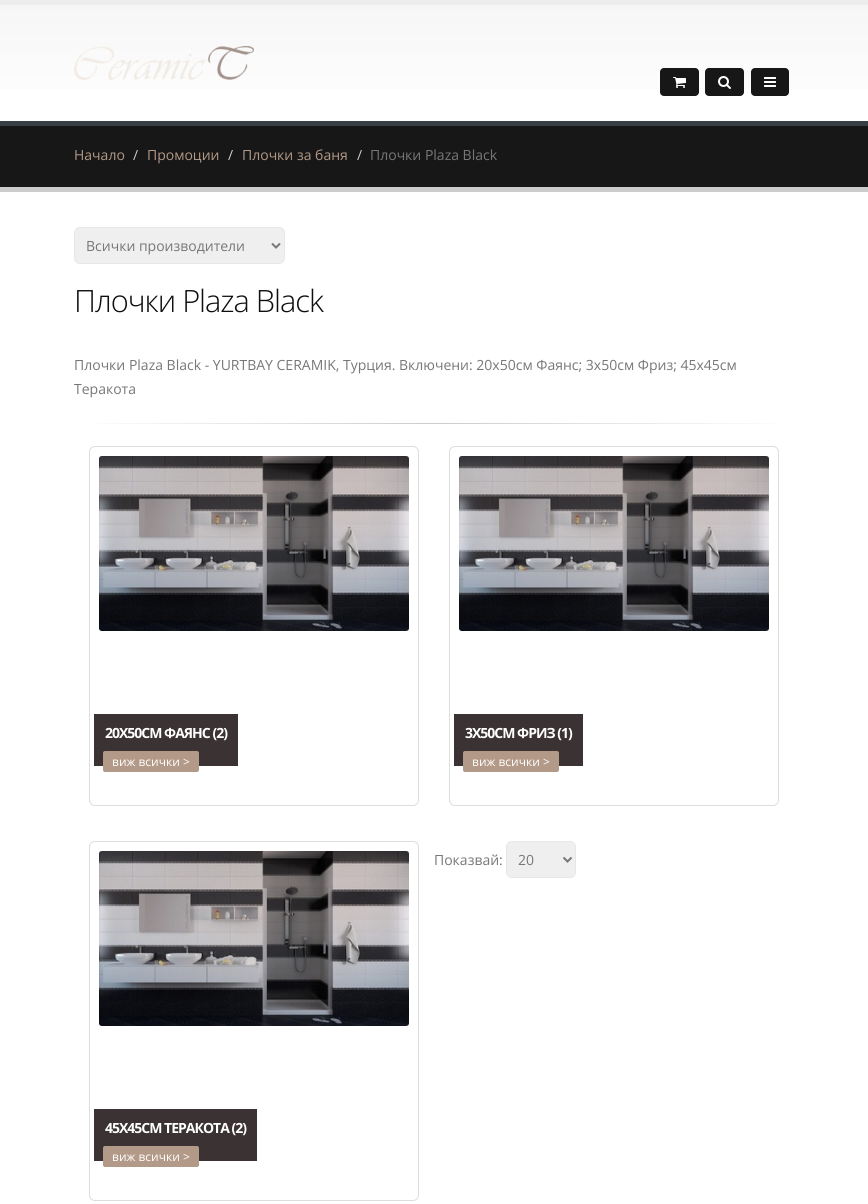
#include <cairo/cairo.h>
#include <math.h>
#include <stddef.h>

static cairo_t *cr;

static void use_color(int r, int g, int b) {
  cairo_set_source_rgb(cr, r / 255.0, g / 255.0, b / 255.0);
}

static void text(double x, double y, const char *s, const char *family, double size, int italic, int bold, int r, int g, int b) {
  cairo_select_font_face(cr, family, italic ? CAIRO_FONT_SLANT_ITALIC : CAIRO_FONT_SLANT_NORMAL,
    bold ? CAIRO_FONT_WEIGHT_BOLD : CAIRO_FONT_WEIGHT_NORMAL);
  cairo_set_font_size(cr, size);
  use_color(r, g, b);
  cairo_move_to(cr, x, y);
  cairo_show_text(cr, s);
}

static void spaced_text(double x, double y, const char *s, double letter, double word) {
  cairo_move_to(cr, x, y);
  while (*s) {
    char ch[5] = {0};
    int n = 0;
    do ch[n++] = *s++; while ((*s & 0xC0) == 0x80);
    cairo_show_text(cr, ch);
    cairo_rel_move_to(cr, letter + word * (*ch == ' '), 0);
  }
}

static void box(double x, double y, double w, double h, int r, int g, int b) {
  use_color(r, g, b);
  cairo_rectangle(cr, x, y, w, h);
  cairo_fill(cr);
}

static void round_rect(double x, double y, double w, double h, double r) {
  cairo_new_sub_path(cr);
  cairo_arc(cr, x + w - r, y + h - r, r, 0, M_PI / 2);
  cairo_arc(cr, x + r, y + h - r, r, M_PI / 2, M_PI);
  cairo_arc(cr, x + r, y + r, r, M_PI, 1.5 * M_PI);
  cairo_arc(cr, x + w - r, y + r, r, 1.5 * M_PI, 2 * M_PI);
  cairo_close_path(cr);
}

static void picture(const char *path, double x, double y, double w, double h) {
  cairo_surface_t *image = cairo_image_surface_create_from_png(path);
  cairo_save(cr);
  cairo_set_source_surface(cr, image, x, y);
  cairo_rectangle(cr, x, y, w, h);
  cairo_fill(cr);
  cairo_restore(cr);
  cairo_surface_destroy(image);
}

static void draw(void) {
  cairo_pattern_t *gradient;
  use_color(255, 255, 255);
  cairo_paint(cr);
  gradient = cairo_pattern_create_linear(434, 5, 434, 121);
  cairo_pattern_add_color_stop_rgba(gradient, 0, 0.965, 0.965, 0.965, 1);
  cairo_pattern_add_color_stop_rgba(gradient, 1, 1, 1, 1, 1);
  cairo_set_source(cr, gradient);
  cairo_pattern_destroy(gradient);
  cairo_rectangle(cr, 0, 5, 868, 84);
  cairo_fill(cr);
  box(0, 0, 868, 5, 237, 237, 237);
  picture("img_01.png", 74, 46, 180, 34);
  use_color(23, 23, 23);
  round_rect(660, 68, 39, 28, 4);
  cairo_fill(cr);
  picture("img_02.png", 673, 77, 13, 11);
  round_rect(705, 68, 39, 28, 4);
  cairo_fill(cr);
  picture("img_03.png", 718, 76, 13, 13);
  round_rect(751, 68, 38, 28, 4);
  cairo_fill(cr);
  picture("img_04.png", 764, 77, 12, 10);
  box(0, 126, 868, 61, 23, 23, 23);
  box(0, 121, 868, 5, 56, 64, 69);
  box(0, 187, 868, 5, 204, 204, 204);
  use_color(239, 239, 239);
  round_rect(74.5, 227.5, 210, 36, 5.5);
  cairo_fill_preserve(cr);
  use_color(229, 231, 233);
  cairo_set_line_width(cr, 1);
  cairo_stroke(cr);
  cairo_new_path(cr);
  cairo_move_to(cr, 272, 243.5);
  cairo_line_to(cr, 276, 247.5);
  cairo_line_to(cr, 280, 243.5);
  use_color(119, 119, 119);
  cairo_set_line_width(cr, 2);
  cairo_stroke(cr);
  gradient = cairo_pattern_create_linear(74, 424, 794, 424);
  cairo_pattern_add_color_stop_rgba(gradient, 0, 1, 1, 1, 1);
  cairo_pattern_add_color_stop_rgba(gradient, 0.5, 0.8, 0.8, 0.8, 1);
  cairo_pattern_add_color_stop_rgba(gradient, 1, 1, 1, 1, 1);
  cairo_set_source(cr, gradient);
  cairo_pattern_destroy(gradient);
  cairo_rectangle(cr, 92, 423, 684, 1);
  cairo_fill(cr);
  round_rect(89.5, 446.5, 329, 359, 5.5);
  use_color(221, 221, 221);
  cairo_set_line_width(cr, 1);
  cairo_stroke(cr);
  picture("img_05.png", 99, 456, 310, 175);
  box(94, 714, 144, 52, 58, 50, 51);
  use_color(179, 153, 135);
  round_rect(103, 751, 96, 21, 2);
  cairo_fill(cr);
  round_rect(449.5, 446.5, 329, 359, 5.5);
  use_color(221, 221, 221);
  cairo_stroke(cr);
  picture("img_06.png", 459, 456, 310, 175);
  box(454, 714, 129, 52, 58, 50, 51);
  use_color(179, 153, 135);
  round_rect(463, 751, 96, 21, 2);
  cairo_fill(cr);
  round_rect(89.5, 841.5, 329, 359, 5.5);
  use_color(221, 221, 221);
  cairo_stroke(cr);
  picture("img_07.png", 99, 851, 310, 175);
  box(94, 1109, 163, 52, 58, 50, 51);
  use_color(179, 153, 135);
  round_rect(103, 1146, 96, 21, 2);
  cairo_fill(cr);
  use_color(239, 239, 239);
  round_rect(506.5, 841.5, 69, 36, 5.5);
  cairo_fill_preserve(cr);
  use_color(229, 231, 233);
  cairo_stroke(cr);
  cairo_new_path(cr);
  cairo_move_to(cr, 563.5, 857.5);
  cairo_line_to(cr, 567.5, 861.5);
  cairo_line_to(cr, 571.5, 857.5);
  use_color(119, 119, 119);
  cairo_set_line_width(cr, 2);
  cairo_stroke(cr);
  text(74, 160, "Начало", "Open Sans", 14, 0, 0, 179, 153, 135);
  text(133, 160, "/", "Open Sans", 14, 0, 0, 204, 204, 204);
  text(147, 160, "Промоции", "Open Sans", 14, 0, 0, 179, 153, 135);
  text(228, 160, "/", "Open Sans", 14, 0, 0, 204, 204, 204);
  text(242, 160, "Плочки за баня", "Open Sans", 14, 0, 0, 179, 153, 135);
  text(357, 160, "/", "Open Sans", 14, 0, 0, 204, 204, 204);
  text(370, 160, "Плочки Plaza Black", "Open Sans", 14, 0, 0, 119, 119, 119);
  text(86, 251, "Всички производители", "Open Sans", 14, 0, 0, 119, 119, 119);
  cairo_select_font_face(cr, "Open Sans Light", CAIRO_FONT_SLANT_NORMAL, CAIRO_FONT_WEIGHT_NORMAL);
  cairo_set_font_size(cr, 30.75);
  use_color(14, 14, 14);
  spaced_text(74, 312, "Плочки Plaza Black", -1, 0);
  text(74, 370, "Плочки Plaza Black - YURTBAY CERAMIK, Турция. Включени: 20x50см Фаянс; 3x50см Фриз; 45х45см", "Open Sans", 14, 0, 0, 119, 119, 119);
  text(74, 394, "Теракота", "Open Sans", 14, 0, 0, 119, 119, 119);
  cairo_select_font_face(cr, "Open Sans", CAIRO_FONT_SLANT_NORMAL, CAIRO_FONT_WEIGHT_BOLD);
  use_color(255, 255, 255);
  spaced_text(105, 738, "20X50СМ ФАЯНС (2)", -1, 0);
  text(112, 766, "виж всички >", "Open Sans", 12, 0, 0, 255, 255, 255);
  cairo_select_font_face(cr, "Open Sans", CAIRO_FONT_SLANT_NORMAL, CAIRO_FONT_WEIGHT_BOLD);
  cairo_set_font_size(cr, 14);
  spaced_text(465, 738, "3Х50СМ ФРИЗ (1)", -1, 0);
  text(472, 766, "виж всички >", "Open Sans", 12, 0, 0, 255, 255, 255);
  cairo_select_font_face(cr, "Open Sans", CAIRO_FONT_SLANT_NORMAL, CAIRO_FONT_WEIGHT_BOLD);
  cairo_set_font_size(cr, 14);
  spaced_text(105, 1133, "45Х45СМ ТЕРАКОТА (2)", -1, 0);
  text(112, 1161, "виж всички >", "Open Sans", 12, 0, 0, 255, 255, 255);
  text(434, 865, "Показвай:", "Open Sans", 14, 0, 0, 119, 119, 119);
  text(518, 865, "20", "Open Sans", 14, 0, 0, 119, 119, 119);
}

int main(void) {
  cairo_surface_t *surface = cairo_image_surface_create(CAIRO_FORMAT_RGB24, 868, 1204);
  cr = cairo_create(surface);
  cairo_font_options_t *options = cairo_font_options_create();
  cairo_font_options_set_hint_metrics(options, CAIRO_HINT_METRICS_OFF);
  cairo_font_options_set_hint_style(options, CAIRO_HINT_STYLE_NONE);
  cairo_set_font_options(cr, options);
  cairo_set_miter_limit(cr, 4);
  draw();
  cairo_surface_write_to_png(surface, "out.png");
  cairo_font_options_destroy(options);
  cairo_destroy(cr);
  cairo_surface_destroy(surface);
  return 0;
}
